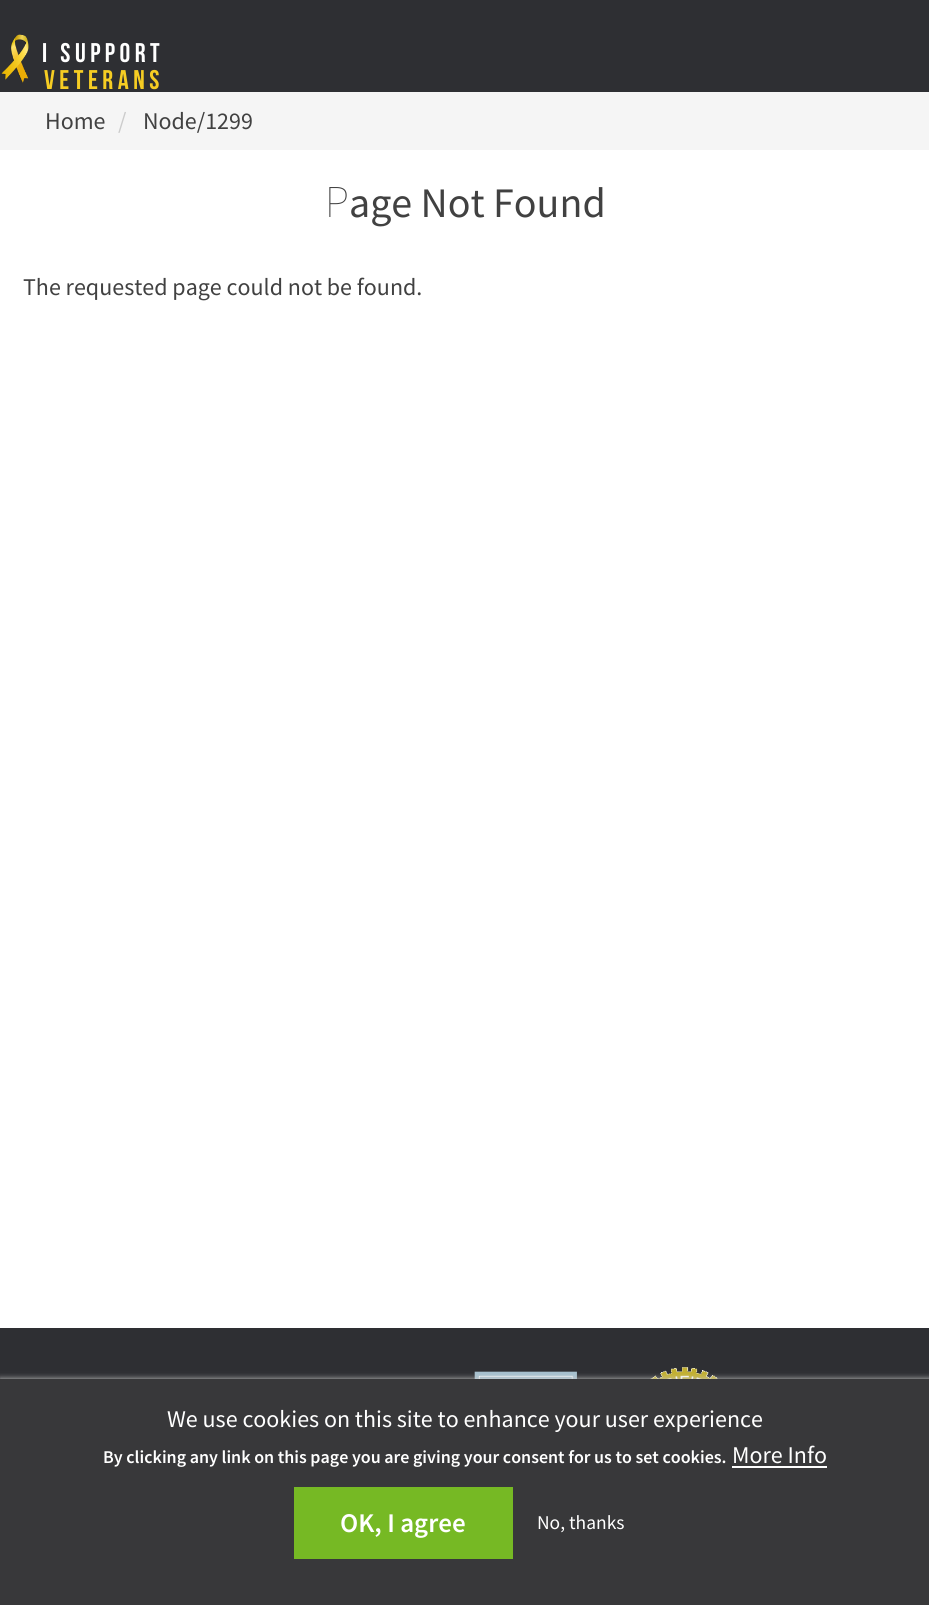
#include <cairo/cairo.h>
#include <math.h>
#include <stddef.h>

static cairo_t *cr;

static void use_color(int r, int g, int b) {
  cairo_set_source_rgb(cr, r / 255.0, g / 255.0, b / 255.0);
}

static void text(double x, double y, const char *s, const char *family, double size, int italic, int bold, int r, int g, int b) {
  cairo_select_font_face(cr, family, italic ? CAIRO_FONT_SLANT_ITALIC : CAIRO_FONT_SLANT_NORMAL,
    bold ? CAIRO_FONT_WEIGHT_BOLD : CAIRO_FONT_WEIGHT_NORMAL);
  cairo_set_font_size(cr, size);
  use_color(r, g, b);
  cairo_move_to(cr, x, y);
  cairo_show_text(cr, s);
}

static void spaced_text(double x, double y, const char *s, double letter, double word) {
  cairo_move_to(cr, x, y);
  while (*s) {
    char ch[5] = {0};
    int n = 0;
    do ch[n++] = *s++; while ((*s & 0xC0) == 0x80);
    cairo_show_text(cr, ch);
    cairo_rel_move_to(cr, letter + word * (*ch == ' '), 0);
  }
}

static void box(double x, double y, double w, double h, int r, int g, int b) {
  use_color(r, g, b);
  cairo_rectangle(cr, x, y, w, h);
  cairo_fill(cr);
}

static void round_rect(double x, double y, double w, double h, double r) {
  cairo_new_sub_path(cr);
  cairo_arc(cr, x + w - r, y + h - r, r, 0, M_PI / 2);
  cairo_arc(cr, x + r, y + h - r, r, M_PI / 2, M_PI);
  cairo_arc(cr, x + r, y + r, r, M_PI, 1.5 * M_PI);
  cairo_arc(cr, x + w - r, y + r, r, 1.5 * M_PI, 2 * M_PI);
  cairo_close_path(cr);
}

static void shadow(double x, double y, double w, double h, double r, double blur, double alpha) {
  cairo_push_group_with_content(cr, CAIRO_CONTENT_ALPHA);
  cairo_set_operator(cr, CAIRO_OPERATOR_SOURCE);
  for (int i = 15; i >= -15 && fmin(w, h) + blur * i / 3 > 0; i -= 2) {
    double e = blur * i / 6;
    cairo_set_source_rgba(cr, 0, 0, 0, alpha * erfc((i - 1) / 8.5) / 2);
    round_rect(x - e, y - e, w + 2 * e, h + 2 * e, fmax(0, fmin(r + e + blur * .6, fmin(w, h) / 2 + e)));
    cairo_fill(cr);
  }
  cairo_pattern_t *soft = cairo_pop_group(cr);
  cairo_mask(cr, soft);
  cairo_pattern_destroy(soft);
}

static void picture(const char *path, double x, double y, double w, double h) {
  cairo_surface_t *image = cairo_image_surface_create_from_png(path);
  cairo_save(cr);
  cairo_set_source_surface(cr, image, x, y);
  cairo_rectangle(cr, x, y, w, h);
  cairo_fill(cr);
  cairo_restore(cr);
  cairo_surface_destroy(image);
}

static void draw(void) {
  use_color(255, 255, 255);
  cairo_paint(cr);
  box(0, 0, 929, 92, 46, 47, 51);
  picture("img_01.png", 1, 34, 28, 49);
  box(0, 92, 929, 58, 245, 245, 245);
  box(0, 1328, 929, 51, 46, 47, 51);
  picture("img_02.png", 474, 1371, 103, 8);
  picture("img_03.png", 650, 1367, 68, 12);
  use_color(204, 204, 204);
  shadow(0, 1379, 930, 226, 0, 3, 1);
  box(0, 1379, 929, 226, 56, 56, 58);
  box(732, 1466, 95, 2, 255, 255, 255);
  box(294, 1487, 219, 72, 118, 185, 36);
  cairo_select_font_face(cr, "Bebas Neue", CAIRO_FONT_SLANT_NORMAL, CAIRO_FONT_WEIGHT_NORMAL);
  cairo_set_font_size(cr, 27);
  use_color(255, 255, 255);
  spaced_text(42, 62, "I SUPPORT", 4.5, 0);
  use_color(246, 205, 35);
  spaced_text(44, 89, "VETERANS", 4.5, 0);
  text(45, 129, "Home", "Source Sans Pro", 24, 0, 0, 65, 65, 65);
  text(118, 129, "/", "Source Sans Pro", 24, 0, 0, 204, 204, 204);
  text(143, 129, "Node/1299", "Source Sans Pro", 24, 0, 0, 65, 65, 65);
  text(325, 217, "P", "Noto Sans Thin", 42, 0, 0, 65, 65, 65);
  text(349, 217, "age Not Found", "Source Sans Pro", 42, 0, 0, 65, 65, 65);
  text(23, 295, "The requested page could not be found.", "Source Sans Pro", 24, 0, 0, 65, 65, 65);
  text(167, 1427, "We use cookies on this site to enhance your user experience", "Source Sans Pro", 24, 0, 0, 255, 255, 255);
  text(103, 1463, "By clicking any link on this page you are giving your consent for us to set cookies.", "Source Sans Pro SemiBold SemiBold", 18, 0, 0, 255, 255, 255);
  text(732, 1463, "More Info", "Source Sans Pro", 24, 0, 0, 255, 255, 255);
  text(340, 1532, "OK, I agree", "Source Sans Pro SemiBold SemiBold", 27, 0, 0, 255, 255, 255);
  text(537, 1529, "No, thanks", "Source Sans Pro", 19.5, 0, 0, 255, 255, 255);
}

int main(void) {
  cairo_surface_t *surface = cairo_image_surface_create(CAIRO_FORMAT_RGB24, 929, 1605);
  cr = cairo_create(surface);
  cairo_font_options_t *options = cairo_font_options_create();
  cairo_font_options_set_hint_metrics(options, CAIRO_HINT_METRICS_OFF);
  cairo_font_options_set_hint_style(options, CAIRO_HINT_STYLE_NONE);
  cairo_set_font_options(cr, options);
  cairo_set_miter_limit(cr, 4);
  draw();
  cairo_surface_write_to_png(surface, "out.png");
  cairo_font_options_destroy(options);
  cairo_destroy(cr);
  cairo_surface_destroy(surface);
  return 0;
}
